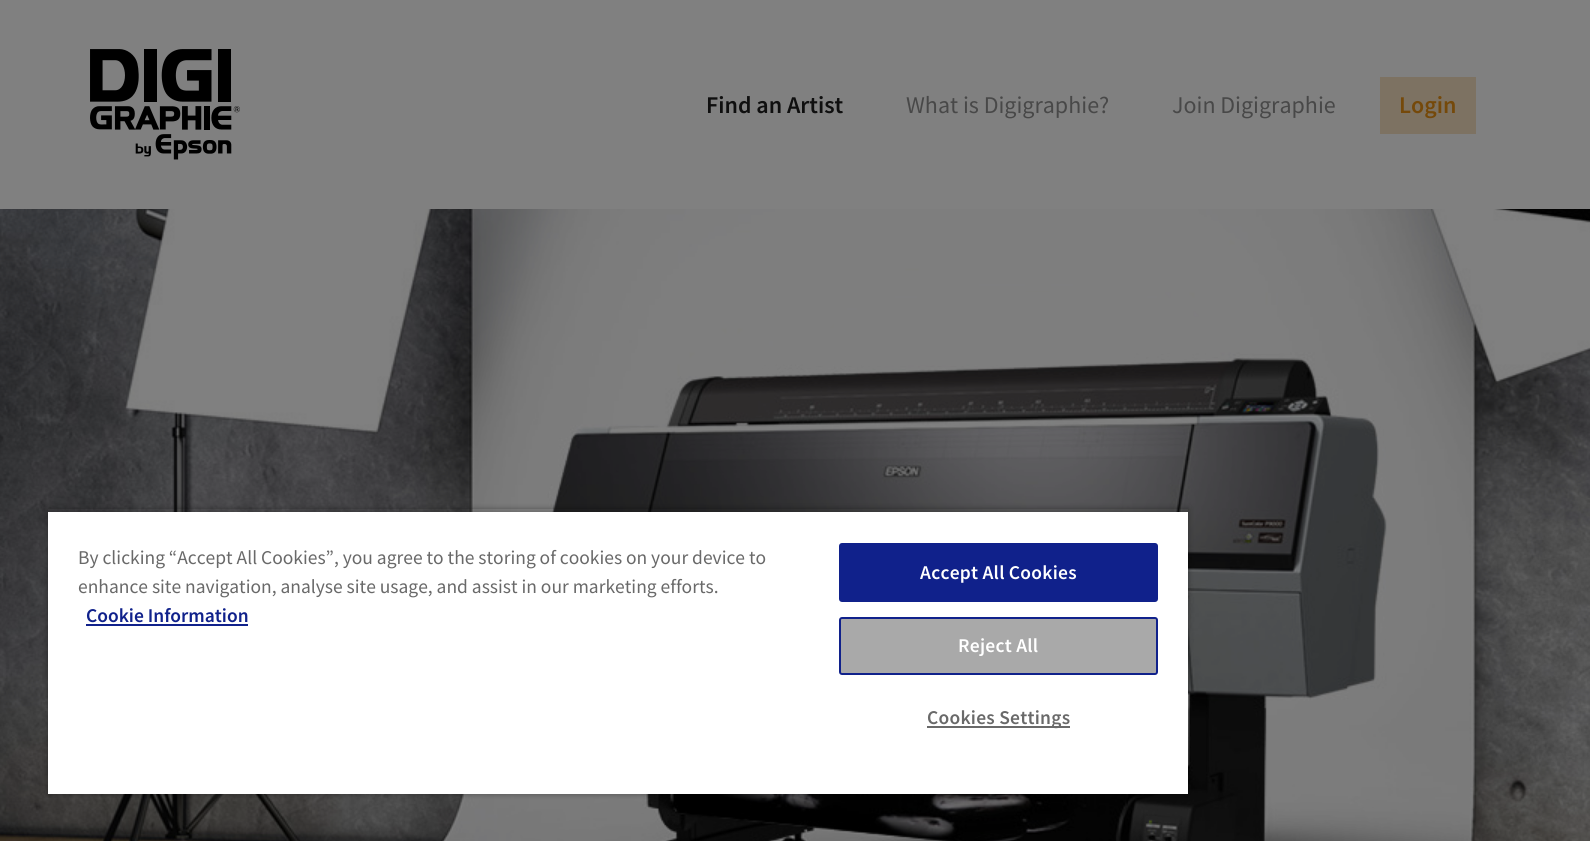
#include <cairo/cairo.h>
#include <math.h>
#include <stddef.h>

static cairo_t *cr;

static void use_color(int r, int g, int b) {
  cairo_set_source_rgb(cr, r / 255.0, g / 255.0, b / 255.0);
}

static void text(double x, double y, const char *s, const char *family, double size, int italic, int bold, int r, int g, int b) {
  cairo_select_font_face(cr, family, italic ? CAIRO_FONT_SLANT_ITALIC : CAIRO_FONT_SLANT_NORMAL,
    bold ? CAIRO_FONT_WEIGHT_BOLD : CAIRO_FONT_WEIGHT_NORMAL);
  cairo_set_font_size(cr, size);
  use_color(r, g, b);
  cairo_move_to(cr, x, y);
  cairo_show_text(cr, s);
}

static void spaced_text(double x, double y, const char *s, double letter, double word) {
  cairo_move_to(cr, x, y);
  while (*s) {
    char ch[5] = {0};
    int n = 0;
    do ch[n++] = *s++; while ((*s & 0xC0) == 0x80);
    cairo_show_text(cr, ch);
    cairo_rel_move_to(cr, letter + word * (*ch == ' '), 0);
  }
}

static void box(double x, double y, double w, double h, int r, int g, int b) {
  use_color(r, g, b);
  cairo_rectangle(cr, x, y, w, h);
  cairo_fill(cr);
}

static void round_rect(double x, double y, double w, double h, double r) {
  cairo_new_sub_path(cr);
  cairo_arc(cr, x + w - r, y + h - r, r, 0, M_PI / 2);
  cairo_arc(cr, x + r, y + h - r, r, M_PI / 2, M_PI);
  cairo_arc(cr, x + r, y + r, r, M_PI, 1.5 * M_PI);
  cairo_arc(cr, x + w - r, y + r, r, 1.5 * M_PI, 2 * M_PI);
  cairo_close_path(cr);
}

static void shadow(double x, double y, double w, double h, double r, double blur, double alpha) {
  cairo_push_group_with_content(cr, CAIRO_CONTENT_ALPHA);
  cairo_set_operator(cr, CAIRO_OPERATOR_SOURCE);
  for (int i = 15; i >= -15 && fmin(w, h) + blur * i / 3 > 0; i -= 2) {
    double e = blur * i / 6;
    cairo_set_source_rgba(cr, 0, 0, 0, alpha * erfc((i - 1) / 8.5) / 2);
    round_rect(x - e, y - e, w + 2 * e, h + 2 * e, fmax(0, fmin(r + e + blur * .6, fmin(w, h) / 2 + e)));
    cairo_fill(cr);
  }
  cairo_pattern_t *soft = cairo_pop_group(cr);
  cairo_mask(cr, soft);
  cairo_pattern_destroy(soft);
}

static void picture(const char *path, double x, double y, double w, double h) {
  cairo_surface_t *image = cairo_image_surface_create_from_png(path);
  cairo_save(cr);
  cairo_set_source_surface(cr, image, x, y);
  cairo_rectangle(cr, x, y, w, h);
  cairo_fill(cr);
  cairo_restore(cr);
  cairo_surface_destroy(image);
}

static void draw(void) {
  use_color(255, 255, 255);
  cairo_paint(cr);
  box(0, 0, 1590, 209, 128, 128, 128);
  picture("img_01.png", 90, 49, 150, 111);
  box(1380, 77, 96, 57, 125, 114, 98);
  picture("img_02.png", 0, 209, 1590, 632);
  cairo_save(cr);
  cairo_set_fill_rule(cr, CAIRO_FILL_RULE_EVEN_ODD);
  cairo_new_path(cr);
  cairo_move_to(cr, 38, 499);
  cairo_line_to(cr, 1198, 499);
  cairo_line_to(cr, 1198, 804);
  cairo_line_to(cr, 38, 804);
  cairo_close_path(cr);
  cairo_move_to(cr, 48, 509);
  cairo_line_to(cr, 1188, 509);
  cairo_line_to(cr, 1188, 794);
  cairo_line_to(cr, 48, 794);
  cairo_close_path(cr);
  cairo_clip(cr);
  use_color(0, 0, 0);
  shadow(48, 509, 1140, 285, 0, 3, 0.35);
  cairo_restore(cr);
  cairo_save(cr);
  cairo_rectangle(cr, 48, 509, 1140, 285);
  cairo_clip(cr);
  use_color(0, 0, 0);
  shadow(48, 512, 1140, 282, 0, 3, 0.2);
  cairo_restore(cr);
  box(48, 512, 1140, 282, 255, 255, 255);
  box(86, 624, 162, 2, 16, 33, 139);
  round_rect(840, 544, 317, 57, 2);
  cairo_fill_preserve(cr);
  cairo_stroke(cr);
  use_color(169, 169, 169);
  round_rect(840, 618, 317, 56, 2);
  cairo_fill_preserve(cr);
  use_color(16, 33, 139);
  cairo_stroke(cr);
  box(927, 726, 143, 2, 105, 105, 105);
  text(706, 113, "Find an Artist", "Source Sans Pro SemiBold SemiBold", 24, 0, 0, 15, 15, 15);
  text(906, 113, "What is Digigraphie?", "Source Sans Pro", 24, 0, 0, 72, 72, 72);
  text(1172, 113, "Join Digigraphie", "Source Sans Pro", 24, 0, 0, 72, 72, 72);
  text(1399, 113, "Login", "Source Sans Pro SemiBold SemiBold", 24, 0, 0, 117, 73, 10);
  text(78, 564, "By clicking “Accept All Cookies”, you agree to the storing of cookies on your device to", "Source Sans Pro", 19.5, 0, 0, 105, 105, 105);
  text(78, 593, "enhance site navigation, analyse site usage, and assist in our marketing efforts.", "Source Sans Pro", 19.5, 0, 0, 105, 105, 105);
  text(86, 622, "Cookie Information", "Source Sans Pro SemiBold SemiBold", 19.5, 0, 0, 16, 33, 139);
  use_color(255, 255, 255);
  spaced_text(920, 579, "Accept All Cookies", 0.25, 0);
  spaced_text(958, 652, "Reject All", 0.25, 0);
  use_color(105, 105, 105);
  spaced_text(927, 724, "Cookies Settings", 0.25, 0);
}

int main(void) {
  cairo_surface_t *surface = cairo_image_surface_create(CAIRO_FORMAT_RGB24, 1590, 841);
  cr = cairo_create(surface);
  cairo_font_options_t *options = cairo_font_options_create();
  cairo_font_options_set_hint_metrics(options, CAIRO_HINT_METRICS_OFF);
  cairo_font_options_set_hint_style(options, CAIRO_HINT_STYLE_NONE);
  cairo_set_font_options(cr, options);
  cairo_set_miter_limit(cr, 4);
  draw();
  cairo_surface_write_to_png(surface, "out.png");
  cairo_font_options_destroy(options);
  cairo_destroy(cr);
  cairo_surface_destroy(surface);
  return 0;
}
